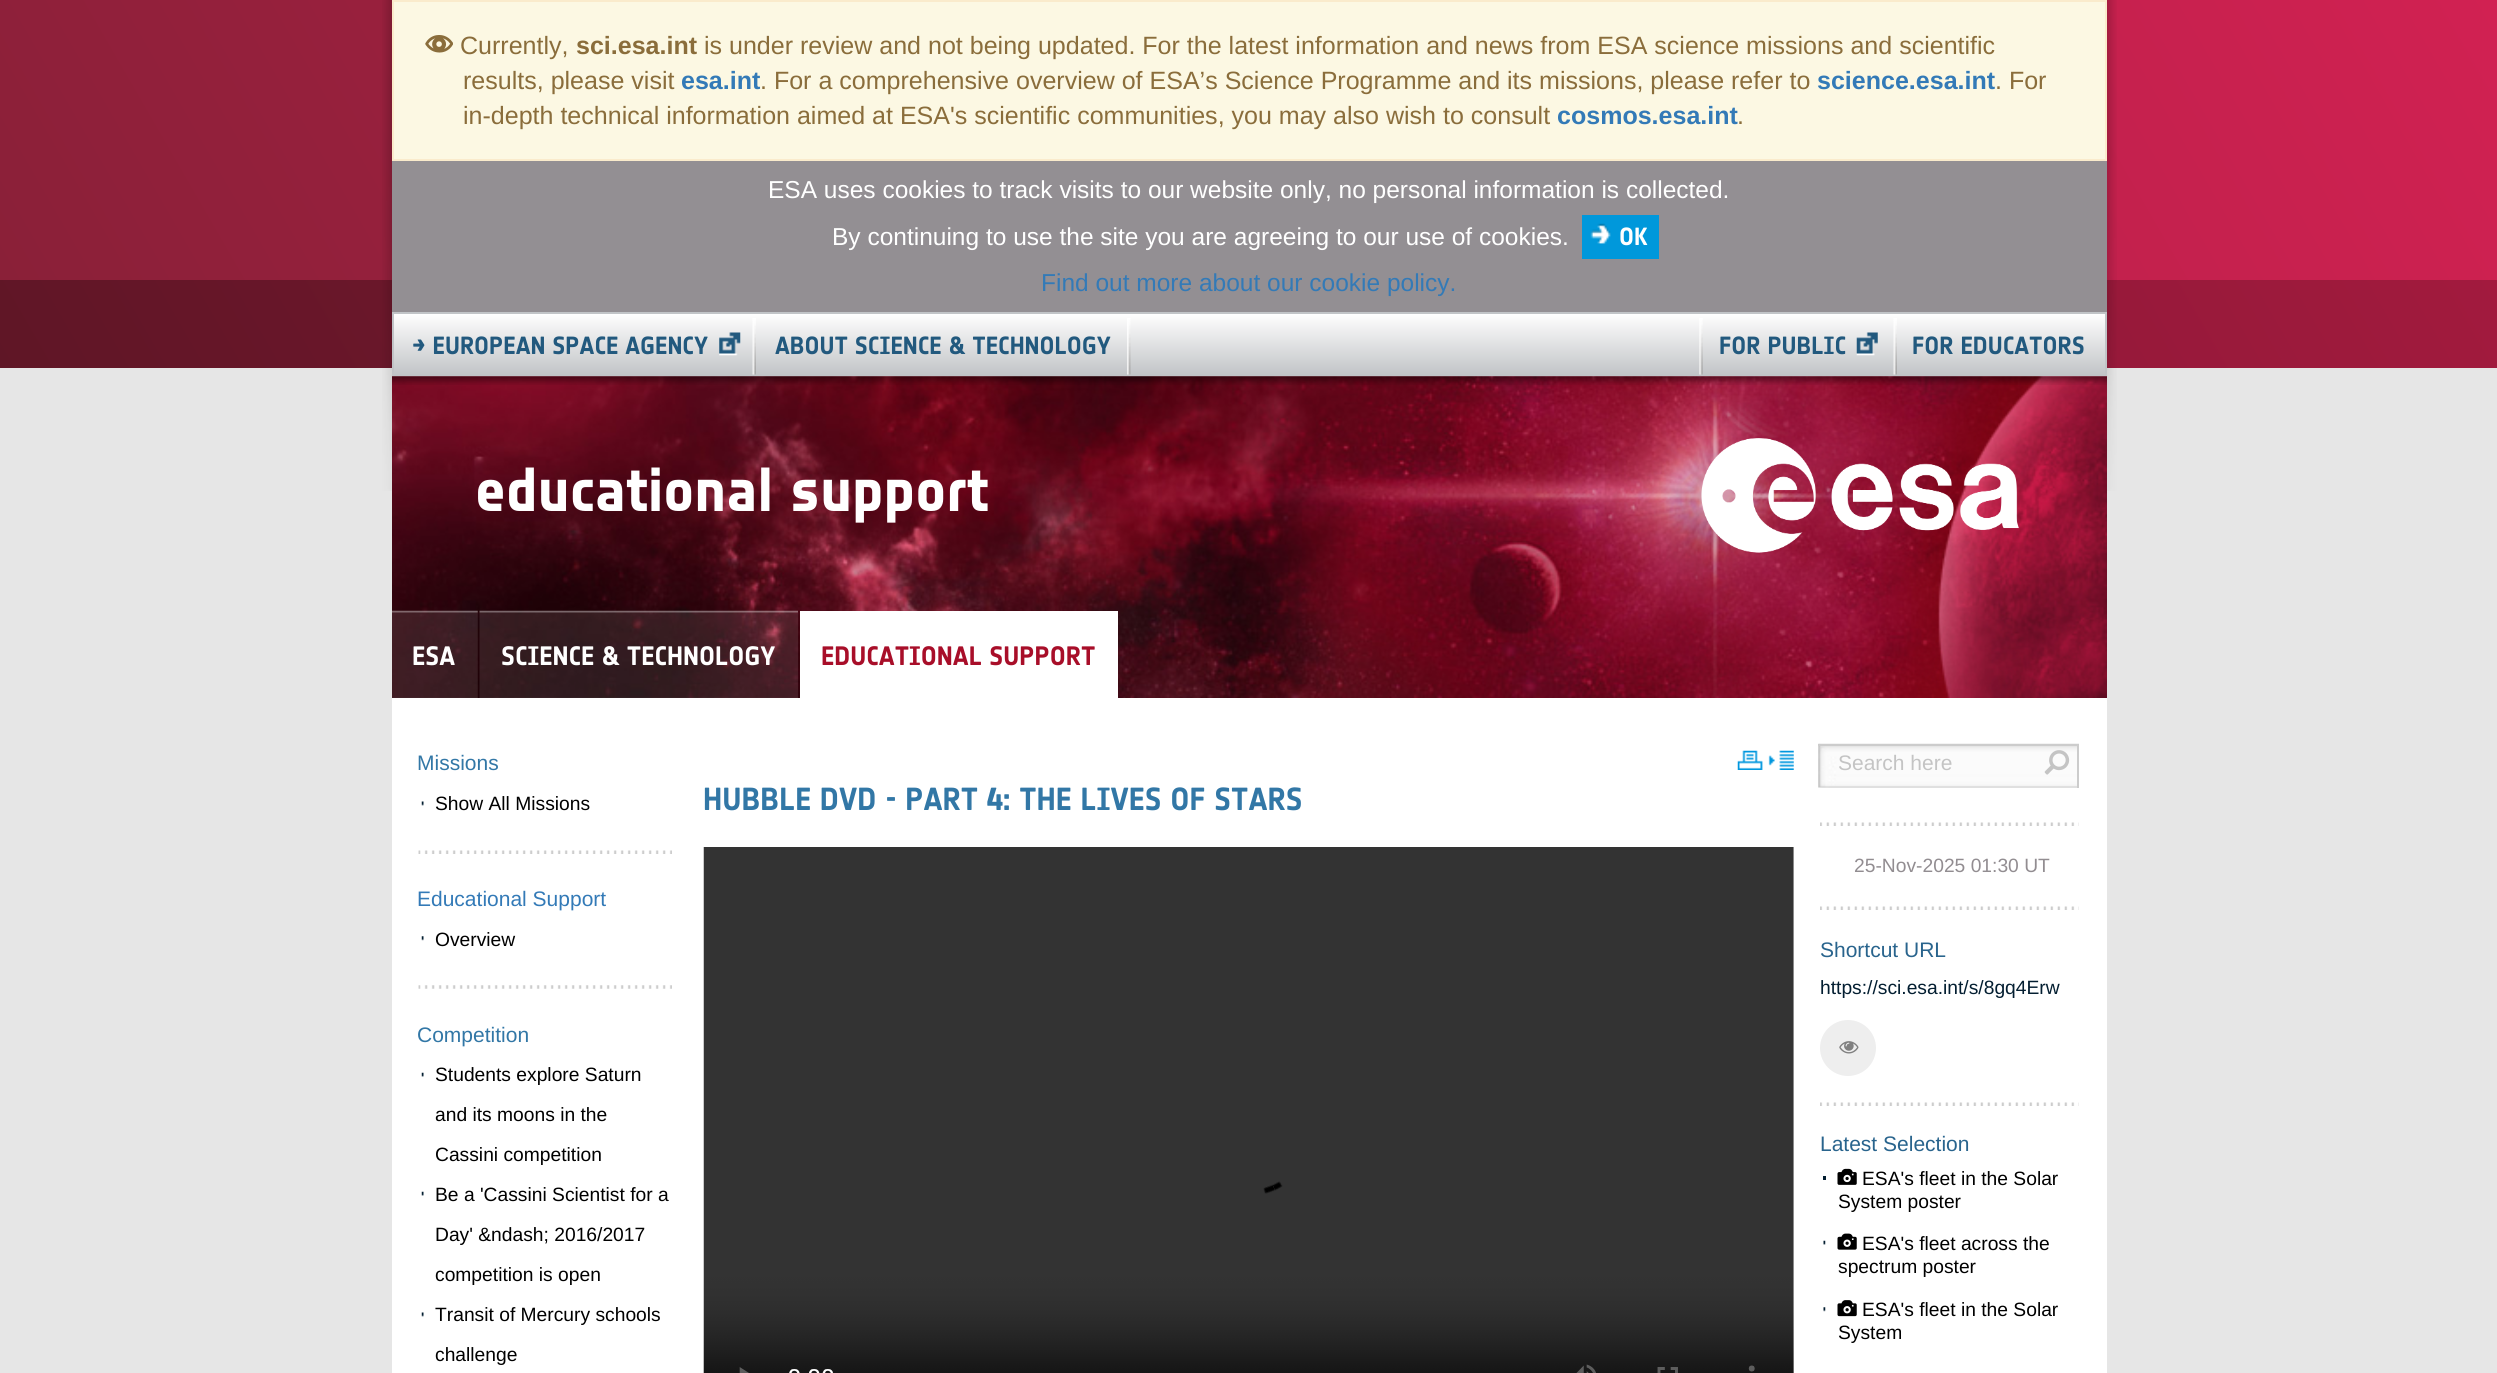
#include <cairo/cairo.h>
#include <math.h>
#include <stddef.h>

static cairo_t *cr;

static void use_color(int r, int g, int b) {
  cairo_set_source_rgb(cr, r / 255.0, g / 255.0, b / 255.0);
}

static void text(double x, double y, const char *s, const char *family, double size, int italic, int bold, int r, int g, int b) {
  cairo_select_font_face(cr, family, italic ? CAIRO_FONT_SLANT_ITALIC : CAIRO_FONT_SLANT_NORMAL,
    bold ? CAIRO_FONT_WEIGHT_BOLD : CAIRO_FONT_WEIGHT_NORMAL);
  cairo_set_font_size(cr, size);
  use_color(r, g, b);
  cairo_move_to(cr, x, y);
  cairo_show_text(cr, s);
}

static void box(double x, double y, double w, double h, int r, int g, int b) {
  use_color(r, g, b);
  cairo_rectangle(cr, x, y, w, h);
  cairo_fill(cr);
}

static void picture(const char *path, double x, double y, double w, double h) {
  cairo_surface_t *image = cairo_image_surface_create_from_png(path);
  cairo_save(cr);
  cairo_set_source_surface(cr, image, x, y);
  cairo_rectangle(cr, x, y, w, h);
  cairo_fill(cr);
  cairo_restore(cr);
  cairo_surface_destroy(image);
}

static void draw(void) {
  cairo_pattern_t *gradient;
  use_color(230, 230, 230);
  cairo_paint(cr);
  gradient = cairo_pattern_create_linear(252, 716, 2246, -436);
  cairo_pattern_add_color_stop_rgba(gradient, 0, 0.541, 0.125, 0.22, 1);
  cairo_pattern_add_color_stop_rgba(gradient, 1, 0.82, 0.129, 0.322, 1);
  cairo_set_source(cr, gradient);
  cairo_pattern_destroy(gradient);
  cairo_rectangle(cr, 0, 0, 2497, 280);
  cairo_fill(cr);
  gradient = cairo_pattern_create_linear(293, 875, 2204, -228);
  cairo_pattern_add_color_stop_rgba(gradient, 0, 0.373, 0.086, 0.149, 1);
  cairo_pattern_add_color_stop_rgba(gradient, 1, 0.635, 0.102, 0.243, 1);
  cairo_set_source(cr, gradient);
  cairo_pattern_destroy(gradient);
  cairo_rectangle(cr, 0, 280, 2497, 88);
  cairo_fill(cr);
  picture("img_01.png", 382, 0, 10, 491);
  use_color(252, 248, 227);
  cairo_rectangle(cr, 393, 1, 1713, 159);
  cairo_fill_preserve(cr);
  use_color(250, 235, 204);
  cairo_stroke(cr);
  picture("img_02.png", 425, 35, 28, 18);
  picture("img_03.png", 2107, 0, 10, 491);
  box(392, 161, 1715, 151, 147, 143, 147);
  box(1582, 215, 77, 44, 0, 152, 219);
  picture("img_04.png", 1590, 223, 21, 21);
  gradient = cairo_pattern_create_linear(1250, 313, 1250, 375);
  cairo_pattern_add_color_stop_rgba(gradient, 0, 1, 1, 1, 1);
  cairo_pattern_add_color_stop_rgba(gradient, 1, 0.757, 0.769, 0.78, 1);
  cairo_set_source(cr, gradient);
  cairo_pattern_destroy(gradient);
  cairo_rectangle(cr, 394, 314, 1711, 60);
  cairo_fill(cr);
  cairo_rectangle(cr, 393, 313, 1713, 62);
  use_color(193, 196, 199);
  cairo_stroke(cr);
  picture("img_05.png", 752, 318, 4, 57);
  picture("img_06.png", 719, 332, 22, 24);
  picture("img_07.png", 1127, 318, 4, 57);
  picture("img_08.png", 1699, 318, 4, 57);
  picture("img_09.png", 1856, 332, 22, 24);
  picture("img_05.png", 1893, 318, 4, 57);
  picture("img_10.png", 392, 376, 1715, 322);
  picture("img_11.png", 392, 376, 1715, 9);
  picture("img_12.png", 1701, 438, 318, 115);
  picture("img_13.png", 392, 610, 86, 88);
  picture("img_14.png", 479, 610, 319, 88);
  box(800, 611, 318, 87, 255, 255, 255);
  box(392, 698, 1715, 675, 255, 255, 255);
  picture("img_15.png", 421, 801, 3, 5);
  picture("img_16.png", 418, 850, 254, 4);
  picture("img_17.png", 421, 936, 3, 5);
  picture("img_18.png", 418, 985, 254, 4);
  picture("img_19.png", 421, 1072, 3, 5);
  picture("img_19.png", 421, 1191, 3, 5);
  picture("img_15.png", 421, 1312, 3, 5);
  picture("img_20.png", 1737, 750, 57, 20);
  picture("img_21.png", 703, 847, 1091, 526);
  picture("img_22.png", 1818, 743, 261, 45);
  box(1818, 744, 261, 2, 204, 204, 204);
  box(2077, 744, 2, 44, 204, 204, 204);
  picture("img_23.png", 2044, 750, 26, 25);
  picture("img_24.png", 1820, 822, 259, 4);
  picture("img_24.png", 1820, 906, 259, 4);
  use_color(238, 238, 238);
  cairo_arc(cr, 1848, 1048, 28, 0, 2 * M_PI);
  cairo_fill(cr);
  picture("img_25.png", 1839, 1041, 20, 13);
  picture("img_24.png", 1820, 1102, 259, 4);
  box(1823, 1176, 3, 4, 3, 30, 49);
  picture("img_26.png", 1837, 1168, 20, 17);
  picture("img_27.png", 1823, 1240, 3, 5);
  picture("img_28.png", 1837, 1233, 20, 17);
  picture("img_29.png", 1823, 1307, 3, 5);
  picture("img_30.png", 1837, 1300, 20, 17);
  text(460, 54, "Currently,", "Liberation Sans", 25.03, 0, 0, 138, 109, 59);
  text(576, 54, "sci.esa.int", "Liberation Sans", 25.03, 0, 1, 138, 109, 59);
  text(704, 54, "is under review and not being updated. For the latest information and news from ESA science missions and scientific", "Liberation Sans", 25.03, 0, 0, 138, 109, 59);
  text(463, 89, "results, please visit", "Liberation Sans", 25.03, 0, 0, 138, 109, 59);
  text(681, 89, "esa.int", "Liberation Sans", 25.03, 0, 1, 51, 122, 183);
  text(760, 89, ". For a comprehensive overview of ESA’s Science Programme and its missions, please refer to", "Liberation Sans", 25.03, 0, 0, 138, 109, 59);
  text(1817, 89, "science.esa.int", "Liberation Sans", 25.03, 0, 1, 51, 122, 183);
  text(1995, 89, ". For", "Liberation Sans", 25.03, 0, 0, 138, 109, 59);
  text(463, 124, "in-depth technical information aimed at ESA's scientific communities, you may also wish to consult", "Liberation Sans", 25.03, 0, 0, 138, 109, 59);
  text(1557, 124, "cosmos.esa.int", "Liberation Sans", 25.03, 0, 1, 51, 122, 183);
  text(1737, 124, ".", "Liberation Sans", 25.03, 0, 0, 138, 109, 59);
  text(768, 198, "ESA uses cookies to track visits to our website only, no personal information is collected.", "Liberation Sans", 24.5, 0, 0, 255, 255, 255);
  text(832, 245, "By continuing to use the site you are agreeing to our use of cookies.", "Liberation Sans", 24.5, 0, 0, 255, 255, 255);
  text(1619, 245, "OK", "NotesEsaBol", 24.5, 0, 1, 255, 255, 255);
  text(1041, 291, "Find out more about our cookie policy.", "Liberation Sans", 24.5, 0, 0, 51, 122, 183);
  text(412, 354, "→ EUROPEAN SPACE AGENCY", "NotesEsaBol", 24.5, 0, 1, 34, 89, 126);
  text(775, 354, "ABOUT SCIENCE & TECHNOLOGY", "NotesEsaBol", 24.5, 0, 1, 34, 89, 126);
  text(1719, 354, "FOR PUBLIC", "NotesEsaBol", 24.5, 0, 1, 34, 89, 126);
  text(1912, 354, "FOR EDUCATORS", "NotesEsaBol", 24.5, 0, 1, 34, 89, 126);
  text(475, 511, "educational support", "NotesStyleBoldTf", 61.25, 0, 1, 255, 255, 255);
  text(412, 665, "ESA", "NotesEsaBol", 26.25, 0, 1, 255, 255, 255);
  text(501, 665, "SCIENCE & TECHNOLOGY", "NotesEsaBol", 26.25, 0, 1, 255, 255, 255);
  text(821, 665, "EDUCATIONAL SUPPORT", "NotesEsaBol", 26.25, 0, 1, 168, 14, 41);
  text(417, 770, "Missions", "Liberation Sans", 21, 0, 0, 50, 119, 166);
  text(435, 810, "Show All Missions", "Liberation Sans", 19.25, 0, 0, 0, 0, 0);
  text(417, 906, "Educational Support", "Liberation Sans", 21, 0, 0, 51, 122, 183);
  text(435, 946, "Overview", "Liberation Sans", 19.25, 0, 0, 0, 0, 0);
  text(417, 1042, "Competition", "Liberation Sans", 21, 0, 0, 50, 119, 166);
  text(435, 1081, "Students explore Saturn", "Liberation Sans", 19.25, 0, 0, 0, 0, 0);
  text(435, 1121, "and its moons in the", "Liberation Sans", 19.25, 0, 0, 0, 0, 0);
  text(435, 1161, "Cassini competition", "Liberation Sans", 19.25, 0, 0, 0, 0, 0);
  text(435, 1201, "Be a 'Cassini Scientist for a", "Liberation Sans", 19.25, 0, 0, 0, 0, 0);
  text(435, 1241, "Day' &ndash; 2016/2017", "Liberation Sans", 19.25, 0, 0, 0, 0, 0);
  text(435, 1281, "competition is open", "Liberation Sans", 19.25, 0, 0, 0, 0, 0);
  text(435, 1321, "Transit of Mercury schools", "Liberation Sans", 19.25, 0, 0, 0, 0, 0);
  text(435, 1361, "challenge", "Liberation Sans", 19.25, 0, 0, 0, 0, 0);
  text(703, 810, "HUBBLE DVD - PART 4: THE LIVES OF STARS", "NotesEsaBol", 31.5, 0, 1, 50, 119, 166);
  text(1838, 770, "Search here", "Liberation Sans", 21, 0, 0, 196, 196, 196);
  text(1854, 872, "25-Nov-2025 01:30 UT", "Liberation Sans", 19.25, 0, 0, 146, 141, 145);
  text(1820, 957, "Shortcut URL", "Liberation Sans", 21, 0, 0, 41, 100, 141);
  text(1820, 994, "https://sci.esa.int/s/8gq4Erw", "Liberation Sans", 19.25, 0, 0, 3, 30, 49);
  text(1820, 1151, "Latest Selection", "Liberation Sans", 21, 0, 0, 41, 100, 141);
  text(1862, 1185, "ESA's fleet in the Solar", "Liberation Sans", 19.25, 0, 0, 0, 0, 0);
  text(1838, 1208, "System poster", "Liberation Sans", 19.25, 0, 0, 0, 0, 0);
  text(1862, 1250, "ESA's fleet across the", "Liberation Sans", 19.25, 0, 0, 0, 0, 0);
  text(1838, 1273, "spectrum poster", "Liberation Sans", 19.25, 0, 0, 0, 0, 0);
  text(1862, 1316, "ESA's fleet in the Solar", "Liberation Sans", 19.25, 0, 0, 0, 0, 0);
  text(1838, 1339, "System", "Liberation Sans", 19.25, 0, 0, 0, 0, 0);
}

int main(void) {
  cairo_surface_t *surface = cairo_image_surface_create(CAIRO_FORMAT_RGB24, 2497, 1373);
  cr = cairo_create(surface);
  cairo_font_options_t *options = cairo_font_options_create();
  cairo_font_options_set_hint_metrics(options, CAIRO_HINT_METRICS_OFF);
  cairo_font_options_set_hint_style(options, CAIRO_HINT_STYLE_NONE);
  cairo_set_font_options(cr, options);
  cairo_set_miter_limit(cr, 4);
  draw();
  cairo_surface_write_to_png(surface, "out.png");
  cairo_font_options_destroy(options);
  cairo_destroy(cr);
  cairo_surface_destroy(surface);
  return 0;
}
